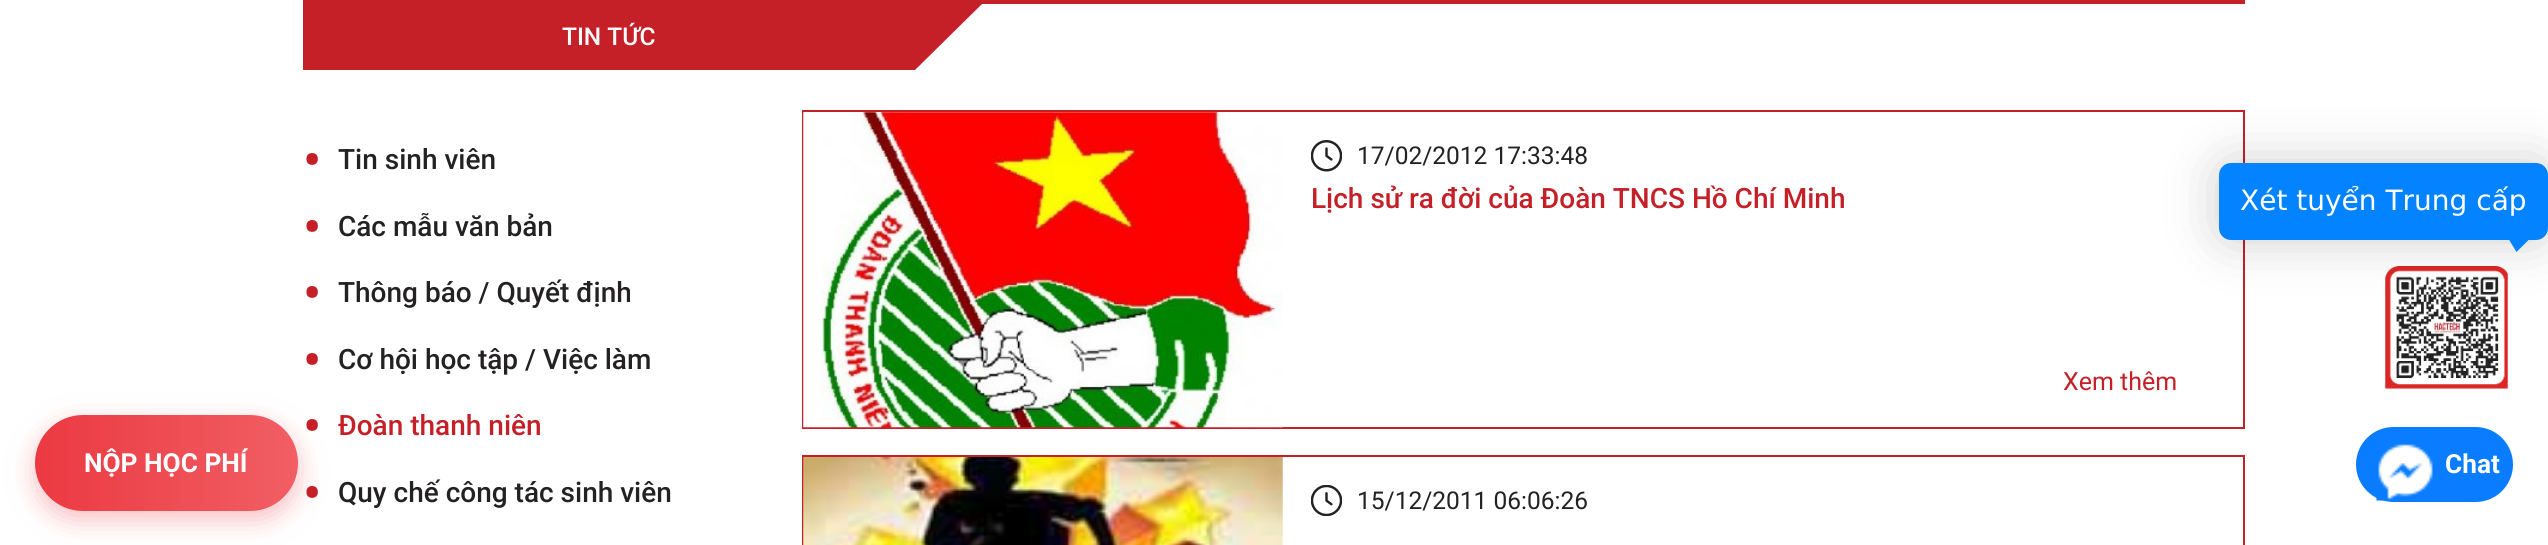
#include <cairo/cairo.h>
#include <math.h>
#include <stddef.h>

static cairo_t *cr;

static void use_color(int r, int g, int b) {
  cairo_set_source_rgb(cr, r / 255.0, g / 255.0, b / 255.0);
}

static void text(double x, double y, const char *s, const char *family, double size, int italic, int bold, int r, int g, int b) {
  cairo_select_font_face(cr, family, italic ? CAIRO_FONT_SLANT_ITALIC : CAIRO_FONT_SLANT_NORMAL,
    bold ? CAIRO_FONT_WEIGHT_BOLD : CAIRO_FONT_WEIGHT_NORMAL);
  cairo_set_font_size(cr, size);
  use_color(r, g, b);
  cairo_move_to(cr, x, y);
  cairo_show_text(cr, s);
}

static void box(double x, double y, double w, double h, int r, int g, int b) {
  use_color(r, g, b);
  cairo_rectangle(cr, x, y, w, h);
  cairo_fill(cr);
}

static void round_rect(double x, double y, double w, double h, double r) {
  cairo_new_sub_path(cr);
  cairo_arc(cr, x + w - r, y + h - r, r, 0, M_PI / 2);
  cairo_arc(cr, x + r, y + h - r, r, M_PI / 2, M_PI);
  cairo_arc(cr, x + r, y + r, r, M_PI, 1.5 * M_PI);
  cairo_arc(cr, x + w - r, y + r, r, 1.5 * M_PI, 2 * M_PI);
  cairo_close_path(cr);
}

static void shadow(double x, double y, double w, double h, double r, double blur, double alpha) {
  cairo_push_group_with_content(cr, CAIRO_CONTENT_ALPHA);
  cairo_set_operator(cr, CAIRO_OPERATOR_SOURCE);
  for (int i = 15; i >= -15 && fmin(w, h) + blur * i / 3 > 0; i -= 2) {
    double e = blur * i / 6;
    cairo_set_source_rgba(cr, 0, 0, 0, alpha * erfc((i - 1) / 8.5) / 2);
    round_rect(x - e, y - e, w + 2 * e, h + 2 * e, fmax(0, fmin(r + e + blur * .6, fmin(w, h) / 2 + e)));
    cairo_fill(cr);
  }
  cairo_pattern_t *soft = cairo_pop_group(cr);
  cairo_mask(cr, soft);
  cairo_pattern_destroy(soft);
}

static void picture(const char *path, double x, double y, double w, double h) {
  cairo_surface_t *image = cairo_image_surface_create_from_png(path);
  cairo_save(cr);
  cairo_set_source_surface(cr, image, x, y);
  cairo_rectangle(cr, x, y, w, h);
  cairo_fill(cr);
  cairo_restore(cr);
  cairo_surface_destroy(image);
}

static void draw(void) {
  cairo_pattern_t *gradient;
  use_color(255, 255, 255);
  cairo_paint(cr);
  box(303, 0, 1942, 4, 197, 31, 39);
  box(303, 4, 612, 66, 197, 31, 39);
  cairo_new_path(cr);
  cairo_move_to(cr, 915, 4);
  cairo_line_to(cr, 982, 4);
  cairo_line_to(cr, 915, 70);
  cairo_close_path(cr);
  cairo_fill(cr);
  cairo_rectangle(cr, 803, 111, 1441, 317);
  cairo_stroke(cr);
  picture("img_01.png", 803, 112, 480, 316);
  picture("img_02.png", 1311, 140, 31, 32);
  cairo_rectangle(cr, 803, 456, 1441, 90);
  cairo_stroke(cr);
  picture("img_03.png", 803, 457, 480, 88);
  picture("img_04.png", 1311, 485, 31, 31);
  picture("img_05.png", 2385, 266, 123, 123);
  use_color(0, 0, 0);
  shadow(2219, 163, 329, 77, 12, 26, 0.2);
  use_color(3, 131, 255);
  round_rect(2219, 163, 329, 77, 12);
  cairo_fill(cr);
  cairo_new_path(cr);
  cairo_move_to(cr, 2508, 238);
  cairo_line_to(cr, 2530.5, 238);
  cairo_line_to(cr, 2516.5, 252);
  cairo_close_path(cr);
  cairo_fill(cr);
  use_color(242, 97, 103);
  shadow(35, 424, 263, 96, 48, 13, 0.4);
  gradient = cairo_pattern_create_linear(35, 463, 823, 463);
  cairo_pattern_add_color_stop_rgba(gradient, 0, 0.922, 0.224, 0.255, 1);
  cairo_pattern_add_color_stop_rgba(gradient, 0.33, 0.945, 0.369, 0.392, 1);
  cairo_pattern_add_color_stop_rgba(gradient, 0.67, 0.882, 0.306, 0.325, 1);
  cairo_pattern_add_color_stop_rgba(gradient, 1, 0.886, 0.216, 0.247, 1);
  cairo_set_source(cr, gradient);
  cairo_pattern_destroy(gradient);
  round_rect(35, 415, 263, 96, 48);
  cairo_fill(cr);
  use_color(10, 124, 255);
  round_rect(2356, 427, 157, 75, 37.5);
  cairo_fill(cr);
  picture("img_06.png", 2376, 444, 57, 57);
  text(562, 45, "TIN TỨC", "Roboto Medium", 24.5, 0, 0, 255, 255, 255);
  text(303, 178, "•", "Roboto Medium", 52, 0, 0, 197, 31, 39);
  text(338, 169, "Tin sinh viên", "Roboto Medium", 28, 0, 0, 35, 33, 33);
  text(303, 245, "•", "Roboto Medium", 52, 0, 0, 197, 31, 39);
  text(338, 236, "Các mẫu văn bản", "Roboto Medium", 28, 0, 0, 35, 33, 33);
  text(303, 311, "•", "Roboto Medium", 52, 0, 0, 197, 31, 39);
  text(338, 302, "Thông báo / Quyết định", "Roboto Medium", 28, 0, 0, 35, 33, 33);
  text(303, 378, "•", "Roboto Medium", 52, 0, 0, 197, 31, 39);
  text(338, 369, "Cơ hội học tập / Việc làm", "Roboto Medium", 28, 0, 0, 35, 33, 33);
  text(303, 444, "•", "Roboto Medium", 52, 0, 0, 197, 31, 39);
  text(338, 435, "Đoàn thanh niên", "Roboto Medium", 28, 0, 0, 197, 31, 39);
  text(303, 511, "•", "Roboto Medium", 52, 0, 0, 197, 31, 39);
  text(338, 502, "Quy chế công tác sinh viên", "Roboto Medium", 28, 0, 0, 35, 33, 33);
  text(1357, 164, "17/02/2012 17:33:48", "Roboto", 24.5, 0, 0, 35, 33, 33);
  text(1311, 208, "Lịch sử ra đời của Đoàn TNCS Hồ Chí Minh", "Roboto Medium", 28, 0, 0, 197, 31, 39);
  text(2063, 390, "Xem thêm", "Roboto", 25, 0, 0, 197, 31, 39);
  text(1357, 509, "15/12/2011 06:06:26", "Roboto", 24.5, 0, 0, 35, 33, 33);
  text(2240, 210, "Xét tuyển Trung cấp", "DejaVu Sans", 28, 0, 0, 255, 255, 255);
  text(84, 472, "NỘP HỌC PHÍ", "Roboto", 26.25, 0, 1, 255, 255, 255);
  text(2445, 473, "Chat", "Roboto", 26.25, 0, 1, 255, 255, 255);
}

int main(void) {
  cairo_surface_t *surface = cairo_image_surface_create(CAIRO_FORMAT_RGB24, 2548, 545);
  cr = cairo_create(surface);
  cairo_font_options_t *options = cairo_font_options_create();
  cairo_font_options_set_hint_metrics(options, CAIRO_HINT_METRICS_OFF);
  cairo_font_options_set_hint_style(options, CAIRO_HINT_STYLE_NONE);
  cairo_set_font_options(cr, options);
  cairo_set_miter_limit(cr, 4);
  draw();
  cairo_surface_write_to_png(surface, "out.png");
  cairo_font_options_destroy(options);
  cairo_destroy(cr);
  cairo_surface_destroy(surface);
  return 0;
}
